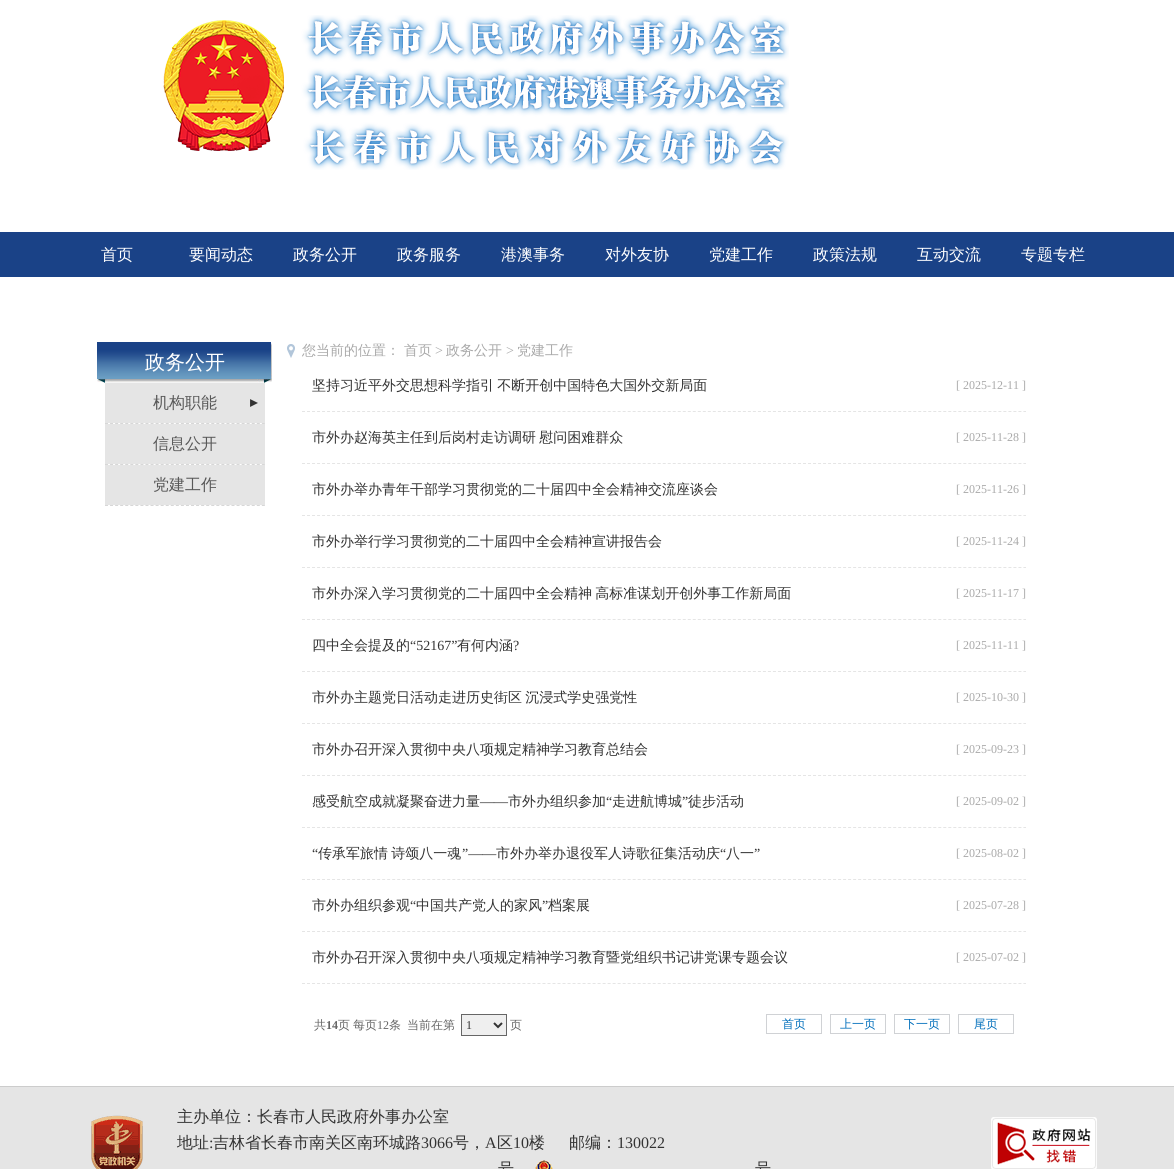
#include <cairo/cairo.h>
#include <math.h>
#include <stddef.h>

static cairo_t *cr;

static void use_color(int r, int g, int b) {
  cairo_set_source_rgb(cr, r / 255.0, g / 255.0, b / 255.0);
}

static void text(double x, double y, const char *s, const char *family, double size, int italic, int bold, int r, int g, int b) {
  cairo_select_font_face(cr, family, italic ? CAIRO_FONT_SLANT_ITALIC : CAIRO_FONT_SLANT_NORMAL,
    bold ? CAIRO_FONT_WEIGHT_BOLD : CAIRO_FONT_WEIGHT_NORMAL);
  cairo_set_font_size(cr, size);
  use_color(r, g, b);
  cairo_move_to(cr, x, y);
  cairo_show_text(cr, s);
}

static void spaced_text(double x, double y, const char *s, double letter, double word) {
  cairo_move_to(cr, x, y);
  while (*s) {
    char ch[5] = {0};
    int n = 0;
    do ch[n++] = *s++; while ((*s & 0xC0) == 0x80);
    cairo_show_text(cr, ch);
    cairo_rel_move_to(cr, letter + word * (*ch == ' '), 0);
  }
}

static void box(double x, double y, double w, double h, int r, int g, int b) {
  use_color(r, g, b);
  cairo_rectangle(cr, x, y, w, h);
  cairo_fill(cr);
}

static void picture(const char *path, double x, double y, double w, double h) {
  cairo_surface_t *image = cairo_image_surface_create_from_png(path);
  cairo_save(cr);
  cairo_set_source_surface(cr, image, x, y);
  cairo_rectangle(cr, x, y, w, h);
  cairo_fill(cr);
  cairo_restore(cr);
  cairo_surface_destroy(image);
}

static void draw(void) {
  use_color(255, 255, 255);
  cairo_paint(cr);
  picture("img_01.png", 163, 15, 626, 155);
  box(0, 232, 1174, 45, 26, 66, 135);
  picture("img_02.png", 97, 342, 175, 41);
  cairo_new_path(cr);
  cairo_move_to(cr, 105, 423.5);
  cairo_line_to(cr, 265, 423.5);
  use_color(215, 215, 215);
  cairo_set_line_width(cr, 1);
  cairo_set_dash(cr, (double[]){3, 2.06}, 2, 0);
  cairo_stroke(cr);
  box(105, 383, 160, 40, 229, 229, 229);
  picture("img_03.png", 250, 399, 8, 8);
  cairo_new_path(cr);
  cairo_move_to(cr, 105, 464.5);
  cairo_line_to(cr, 265, 464.5);
  use_color(215, 215, 215);
  cairo_stroke(cr);
  box(105, 424, 160, 40, 229, 229, 229);
  cairo_new_path(cr);
  cairo_move_to(cr, 105, 505.5);
  cairo_line_to(cr, 265, 505.5);
  use_color(215, 215, 215);
  cairo_stroke(cr);
  box(105, 465, 160, 40, 229, 229, 229);
  picture("img_04.png", 287, 344, 8, 14);
  cairo_new_path(cr);
  cairo_move_to(cr, 302, 411.5);
  cairo_line_to(cr, 1026, 411.5);
  cairo_set_dash(cr, (double[]){3, 2.01}, 2, 0);
  cairo_stroke(cr);
  cairo_new_path(cr);
  cairo_move_to(cr, 302, 463.5);
  cairo_line_to(cr, 1026, 463.5);
  cairo_stroke(cr);
  cairo_new_path(cr);
  cairo_move_to(cr, 302, 515.5);
  cairo_line_to(cr, 1026, 515.5);
  cairo_stroke(cr);
  cairo_new_path(cr);
  cairo_move_to(cr, 302, 567.5);
  cairo_line_to(cr, 1026, 567.5);
  cairo_stroke(cr);
  cairo_new_path(cr);
  cairo_move_to(cr, 302, 619.5);
  cairo_line_to(cr, 1026, 619.5);
  cairo_stroke(cr);
  cairo_new_path(cr);
  cairo_move_to(cr, 302, 671.5);
  cairo_line_to(cr, 1026, 671.5);
  cairo_stroke(cr);
  cairo_new_path(cr);
  cairo_move_to(cr, 302, 723.5);
  cairo_line_to(cr, 1026, 723.5);
  cairo_stroke(cr);
  cairo_new_path(cr);
  cairo_move_to(cr, 302, 775.5);
  cairo_line_to(cr, 1026, 775.5);
  cairo_stroke(cr);
  cairo_new_path(cr);
  cairo_move_to(cr, 302, 827.5);
  cairo_line_to(cr, 1026, 827.5);
  cairo_stroke(cr);
  cairo_new_path(cr);
  cairo_move_to(cr, 302, 879.5);
  cairo_line_to(cr, 1026, 879.5);
  cairo_stroke(cr);
  cairo_new_path(cr);
  cairo_move_to(cr, 302, 931.5);
  cairo_line_to(cr, 1026, 931.5);
  cairo_stroke(cr);
  cairo_new_path(cr);
  cairo_move_to(cr, 302, 983.5);
  cairo_line_to(cr, 1026, 983.5);
  cairo_stroke(cr);
  use_color(239, 239, 239);
  cairo_rectangle(cr, 461.5, 1014.5, 45, 21);
  cairo_fill_preserve(cr);
  use_color(102, 102, 102);
  cairo_set_dash(cr, NULL, 0, 0);
  cairo_stroke(cr);
  cairo_new_path(cr);
  cairo_move_to(cr, 494, 1023);
  cairo_line_to(cr, 498, 1027);
  cairo_line_to(cr, 502, 1023);
  use_color(51, 51, 51);
  cairo_set_line_width(cr, 2);
  cairo_stroke(cr);
  cairo_rectangle(cr, 766.5, 1014.5, 55, 19);
  use_color(208, 210, 213);
  cairo_set_line_width(cr, 1);
  cairo_stroke(cr);
  cairo_rectangle(cr, 830.5, 1014.5, 55, 19);
  cairo_stroke(cr);
  cairo_rectangle(cr, 894.5, 1014.5, 55, 19);
  cairo_stroke(cr);
  cairo_rectangle(cr, 958.5, 1014.5, 55, 19);
  cairo_stroke(cr);
  box(0, 1086, 1174, 1, 204, 204, 204);
  box(0, 1087, 1174, 82, 229, 229, 229);
  picture("img_05.png", 91, 1115, 52, 54);
  picture("img_06.png", 535, 1160, 18, 9);
  picture("img_07.png", 991, 1117, 106, 52);
  text(101, 260, "首页", "WenQuanYi Zen Hei Medium", 16, 0, 0, 255, 255, 255);
  text(189, 260, "要闻动态", "WenQuanYi Zen Hei Medium", 16, 0, 0, 255, 255, 255);
  text(293, 260, "政务公开", "WenQuanYi Zen Hei Medium", 16, 0, 0, 255, 255, 255);
  text(397, 260, "政务服务", "WenQuanYi Zen Hei Medium", 16, 0, 0, 255, 255, 255);
  text(501, 260, "港澳事务", "WenQuanYi Zen Hei Medium", 16, 0, 0, 255, 255, 255);
  text(605, 260, "对外友协", "WenQuanYi Zen Hei Medium", 16, 0, 0, 255, 255, 255);
  text(709, 260, "党建工作", "WenQuanYi Zen Hei Medium", 16, 0, 0, 255, 255, 255);
  text(813, 260, "政策法规", "WenQuanYi Zen Hei Medium", 16, 0, 0, 255, 255, 255);
  text(917, 260, "互动交流", "WenQuanYi Zen Hei Medium", 16, 0, 0, 255, 255, 255);
  text(1021, 260, "专题专栏", "WenQuanYi Zen Hei Medium", 16, 0, 0, 255, 255, 255);
  text(145, 369, "政务公开", "WenQuanYi Zen Hei Medium", 20, 0, 0, 255, 255, 255);
  text(153, 408, "机构职能", "WenQuanYi Zen Hei Medium", 16, 0, 0, 88, 88, 88);
  text(153, 449, "信息公开", "WenQuanYi Zen Hei Medium", 16, 0, 0, 88, 88, 88);
  text(153, 490, "党建工作", "WenQuanYi Zen Hei Medium", 16, 0, 0, 88, 88, 88);
  text(302, 355, "您当前的位置：", "WenQuanYi Zen Hei Medium", 14, 0, 0, 169, 169, 169);
  text(404, 355, "首页", "WenQuanYi Zen Hei Medium", 14, 0, 0, 169, 169, 169);
  text(435, 355, ">", "Liberation Serif", 14, 0, 0, 169, 169, 169);
  text(446, 355, "政务公开", "WenQuanYi Zen Hei Medium", 14, 0, 0, 169, 169, 169);
  text(506, 355, ">", "Liberation Serif", 14, 0, 0, 169, 169, 169);
  text(517, 355, "党建工作", "WenQuanYi Zen Hei Medium", 14, 0, 0, 169, 169, 169);
  use_color(51, 51, 51);
  spaced_text(312, 390, "坚持习近平外交思想科学指引 不断开创中国特色大国外交新局面", 0, -1);
  text(956, 389, "[ 2025-12-11 ]", "Liberation Serif", 12, 0, 0, 169, 169, 169);
  cairo_select_font_face(cr, "WenQuanYi Zen Hei Medium", CAIRO_FONT_SLANT_NORMAL, CAIRO_FONT_WEIGHT_NORMAL);
  cairo_set_font_size(cr, 14);
  use_color(51, 51, 51);
  spaced_text(312, 442, "市外办赵海英主任到后岗村走访调研 慰问困难群众", 0, -1);
  text(956, 441, "[ 2025-11-28 ]", "Liberation Serif", 12, 0, 0, 169, 169, 169);
  text(312, 494, "市外办举办青年干部学习贯彻党的二十届四中全会精神交流座谈会", "WenQuanYi Zen Hei Medium", 14, 0, 0, 51, 51, 51);
  text(956, 493, "[ 2025-11-26 ]", "Liberation Serif", 12, 0, 0, 169, 169, 169);
  text(312, 546, "市外办举行学习贯彻党的二十届四中全会精神宣讲报告会", "WenQuanYi Zen Hei Medium", 14, 0, 0, 51, 51, 51);
  text(956, 545, "[ 2025-11-24 ]", "Liberation Serif", 12, 0, 0, 169, 169, 169);
  cairo_select_font_face(cr, "WenQuanYi Zen Hei Medium", CAIRO_FONT_SLANT_NORMAL, CAIRO_FONT_WEIGHT_NORMAL);
  cairo_set_font_size(cr, 14);
  use_color(51, 51, 51);
  spaced_text(312, 598, "市外办深入学习贯彻党的二十届四中全会精神 高标准谋划开创外事工作新局面", 0, -1);
  text(956, 597, "[ 2025-11-17 ]", "Liberation Serif", 12, 0, 0, 169, 169, 169);
  text(312, 650, "四中全会提及的", "WenQuanYi Zen Hei Medium", 14, 0, 0, 51, 51, 51);
  text(410, 650, "“52167”", "Liberation Serif", 14, 0, 0, 51, 51, 51);
  text(457, 650, "有何内涵", "WenQuanYi Zen Hei Medium", 14, 0, 0, 51, 51, 51);
  text(513, 650, "?", "Liberation Serif", 14, 0, 0, 51, 51, 51);
  text(956, 649, "[ 2025-11-11 ]", "Liberation Serif", 12, 0, 0, 169, 169, 169);
  cairo_select_font_face(cr, "WenQuanYi Zen Hei Medium", CAIRO_FONT_SLANT_NORMAL, CAIRO_FONT_WEIGHT_NORMAL);
  cairo_set_font_size(cr, 14);
  use_color(51, 51, 51);
  spaced_text(312, 702, "市外办主题党日活动走进历史街区 沉浸式学史强党性", 0, -1);
  text(956, 701, "[ 2025-10-30 ]", "Liberation Serif", 12, 0, 0, 169, 169, 169);
  text(312, 754, "市外办召开深入贯彻中央八项规定精神学习教育总结会", "WenQuanYi Zen Hei Medium", 14, 0, 0, 51, 51, 51);
  text(956, 753, "[ 2025-09-23 ]", "Liberation Serif", 12, 0, 0, 169, 169, 169);
  text(312, 806, "感受航空成就凝聚奋进力量", "WenQuanYi Zen Hei Medium", 14, 0, 0, 51, 51, 51);
  text(480, 806, "——", "Liberation Serif", 14, 0, 0, 51, 51, 51);
  text(508, 806, "市外办组织参加", "WenQuanYi Zen Hei Medium", 14, 0, 0, 51, 51, 51);
  text(606, 806, "“", "Liberation Serif", 14, 0, 0, 51, 51, 51);
  text(612, 806, "走进航博城", "WenQuanYi Zen Hei Medium", 14, 0, 0, 51, 51, 51);
  text(682, 806, "”", "Liberation Serif", 14, 0, 0, 51, 51, 51);
  text(688, 806, "徒步活动", "WenQuanYi Zen Hei Medium", 14, 0, 0, 51, 51, 51);
  text(956, 805, "[ 2025-09-02 ]", "Liberation Serif", 12, 0, 0, 169, 169, 169);
  text(312, 858, "“", "Liberation Serif", 14, 0, 0, 51, 51, 51);
  cairo_select_font_face(cr, "WenQuanYi Zen Hei Medium", CAIRO_FONT_SLANT_NORMAL, CAIRO_FONT_WEIGHT_NORMAL);
  spaced_text(318, 858, "传承军旅情 诗颂八一魂", 0, -1);
  text(462, 858, "”——", "Liberation Serif", 14, 0, 0, 51, 51, 51);
  text(496, 858, "市外办举办退役军人诗歌征集活动庆", "WenQuanYi Zen Hei Medium", 14, 0, 0, 51, 51, 51);
  text(720, 858, "“", "Liberation Serif", 14, 0, 0, 51, 51, 51);
  text(726, 858, "八一", "WenQuanYi Zen Hei Medium", 14, 0, 0, 51, 51, 51);
  text(754, 858, "”", "Liberation Serif", 14, 0, 0, 51, 51, 51);
  text(956, 857, "[ 2025-08-02 ]", "Liberation Serif", 12, 0, 0, 169, 169, 169);
  text(312, 910, "市外办组织参观", "WenQuanYi Zen Hei Medium", 14, 0, 0, 51, 51, 51);
  text(410, 910, "“", "Liberation Serif", 14, 0, 0, 51, 51, 51);
  text(416, 910, "中国共产党人的家风", "WenQuanYi Zen Hei Medium", 14, 0, 0, 51, 51, 51);
  text(542, 910, "”", "Liberation Serif", 14, 0, 0, 51, 51, 51);
  text(548, 910, "档案展", "WenQuanYi Zen Hei Medium", 14, 0, 0, 51, 51, 51);
  text(956, 909, "[ 2025-07-28 ]", "Liberation Serif", 12, 0, 0, 169, 169, 169);
  text(312, 962, "市外办召开深入贯彻中央八项规定精神学习教育暨党组织书记讲党课专题会议", "WenQuanYi Zen Hei Medium", 14, 0, 0, 51, 51, 51);
  text(956, 961, "[ 2025-07-02 ]", "Liberation Serif", 12, 0, 0, 169, 169, 169);
  text(314, 1029, "共", "WenQuanYi Zen Hei Medium", 12, 0, 0, 102, 102, 102);
  text(326, 1029, "14", "Liberation Serif", 12, 0, 1, 102, 102, 102);
  text(338, 1029, "页", "WenQuanYi Zen Hei Medium", 12, 0, 0, 102, 102, 102);
  text(353, 1029, "每页", "WenQuanYi Zen Hei Medium", 12, 0, 0, 102, 102, 102);
  text(377, 1029, "12", "Liberation Serif", 12, 0, 0, 102, 102, 102);
  text(389, 1029, "条", "WenQuanYi Zen Hei Medium", 12, 0, 0, 102, 102, 102);
  text(407, 1029, "当前在第", "WenQuanYi Zen Hei Medium", 12, 0, 0, 102, 102, 102);
  text(466, 1029, "1", "Liberation Serif", 12, 0, 0, 51, 51, 51);
  text(510, 1029, "页", "WenQuanYi Zen Hei Medium", 12, 0, 0, 102, 102, 102);
  text(782, 1028, "首页", "WenQuanYi Zen Hei Medium", 12, 0, 0, 0, 110, 187);
  text(840, 1028, "上一页", "WenQuanYi Zen Hei Medium", 12, 0, 0, 0, 110, 187);
  text(904, 1028, "下一页", "WenQuanYi Zen Hei Medium", 12, 0, 0, 0, 110, 187);
  text(974, 1028, "尾页", "WenQuanYi Zen Hei Medium", 12, 0, 0, 0, 110, 187);
  text(177, 1122, "主办单位：长春市人民政府外事办公室", "WenQuanYi Zen Hei Medium", 16, 0, 0, 51, 51, 51);
  text(177, 1148, "地址", "WenQuanYi Zen Hei Medium", 16, 0, 0, 51, 51, 51);
  text(209, 1148, ":", "Liberation Serif", 16, 0, 0, 51, 51, 51);
  text(213, 1148, "吉林省长春市南关区南环城路", "WenQuanYi Zen Hei Medium", 16, 0, 0, 51, 51, 51);
  text(421, 1148, "3066", "Liberation Serif", 16, 0, 0, 51, 51, 51);
  text(453, 1148, "号，", "WenQuanYi Zen Hei Medium", 16, 0, 0, 51, 51, 51);
  text(485, 1148, "A", "Liberation Serif", 16, 0, 0, 51, 51, 51);
  text(497, 1148, "区", "WenQuanYi Zen Hei Medium", 16, 0, 0, 51, 51, 51);
  text(513, 1148, "10", "Liberation Serif", 16, 0, 0, 51, 51, 51);
  text(529, 1148, "楼", "WenQuanYi Zen Hei Medium", 16, 0, 0, 51, 51, 51);
  text(569, 1148, "邮编：", "WenQuanYi Zen Hei Medium", 16, 0, 0, 51, 51, 51);
  text(617, 1148, "130022", "Liberation Serif", 16, 0, 0, 51, 51, 51);
  text(498, 1174, "号", "WenQuanYi Zen Hei Medium", 16, 0, 0, 51, 51, 51);
  text(755, 1174, "号", "WenQuanYi Zen Hei Medium", 16, 0, 0, 51, 51, 51);
}

int main(void) {
  cairo_surface_t *surface = cairo_image_surface_create(CAIRO_FORMAT_RGB24, 1174, 1169);
  cr = cairo_create(surface);
  cairo_font_options_t *options = cairo_font_options_create();
  cairo_font_options_set_hint_metrics(options, CAIRO_HINT_METRICS_OFF);
  cairo_font_options_set_hint_style(options, CAIRO_HINT_STYLE_NONE);
  cairo_set_font_options(cr, options);
  cairo_set_miter_limit(cr, 4);
  draw();
  cairo_surface_write_to_png(surface, "out.png");
  cairo_font_options_destroy(options);
  cairo_destroy(cr);
  cairo_surface_destroy(surface);
  return 0;
}
